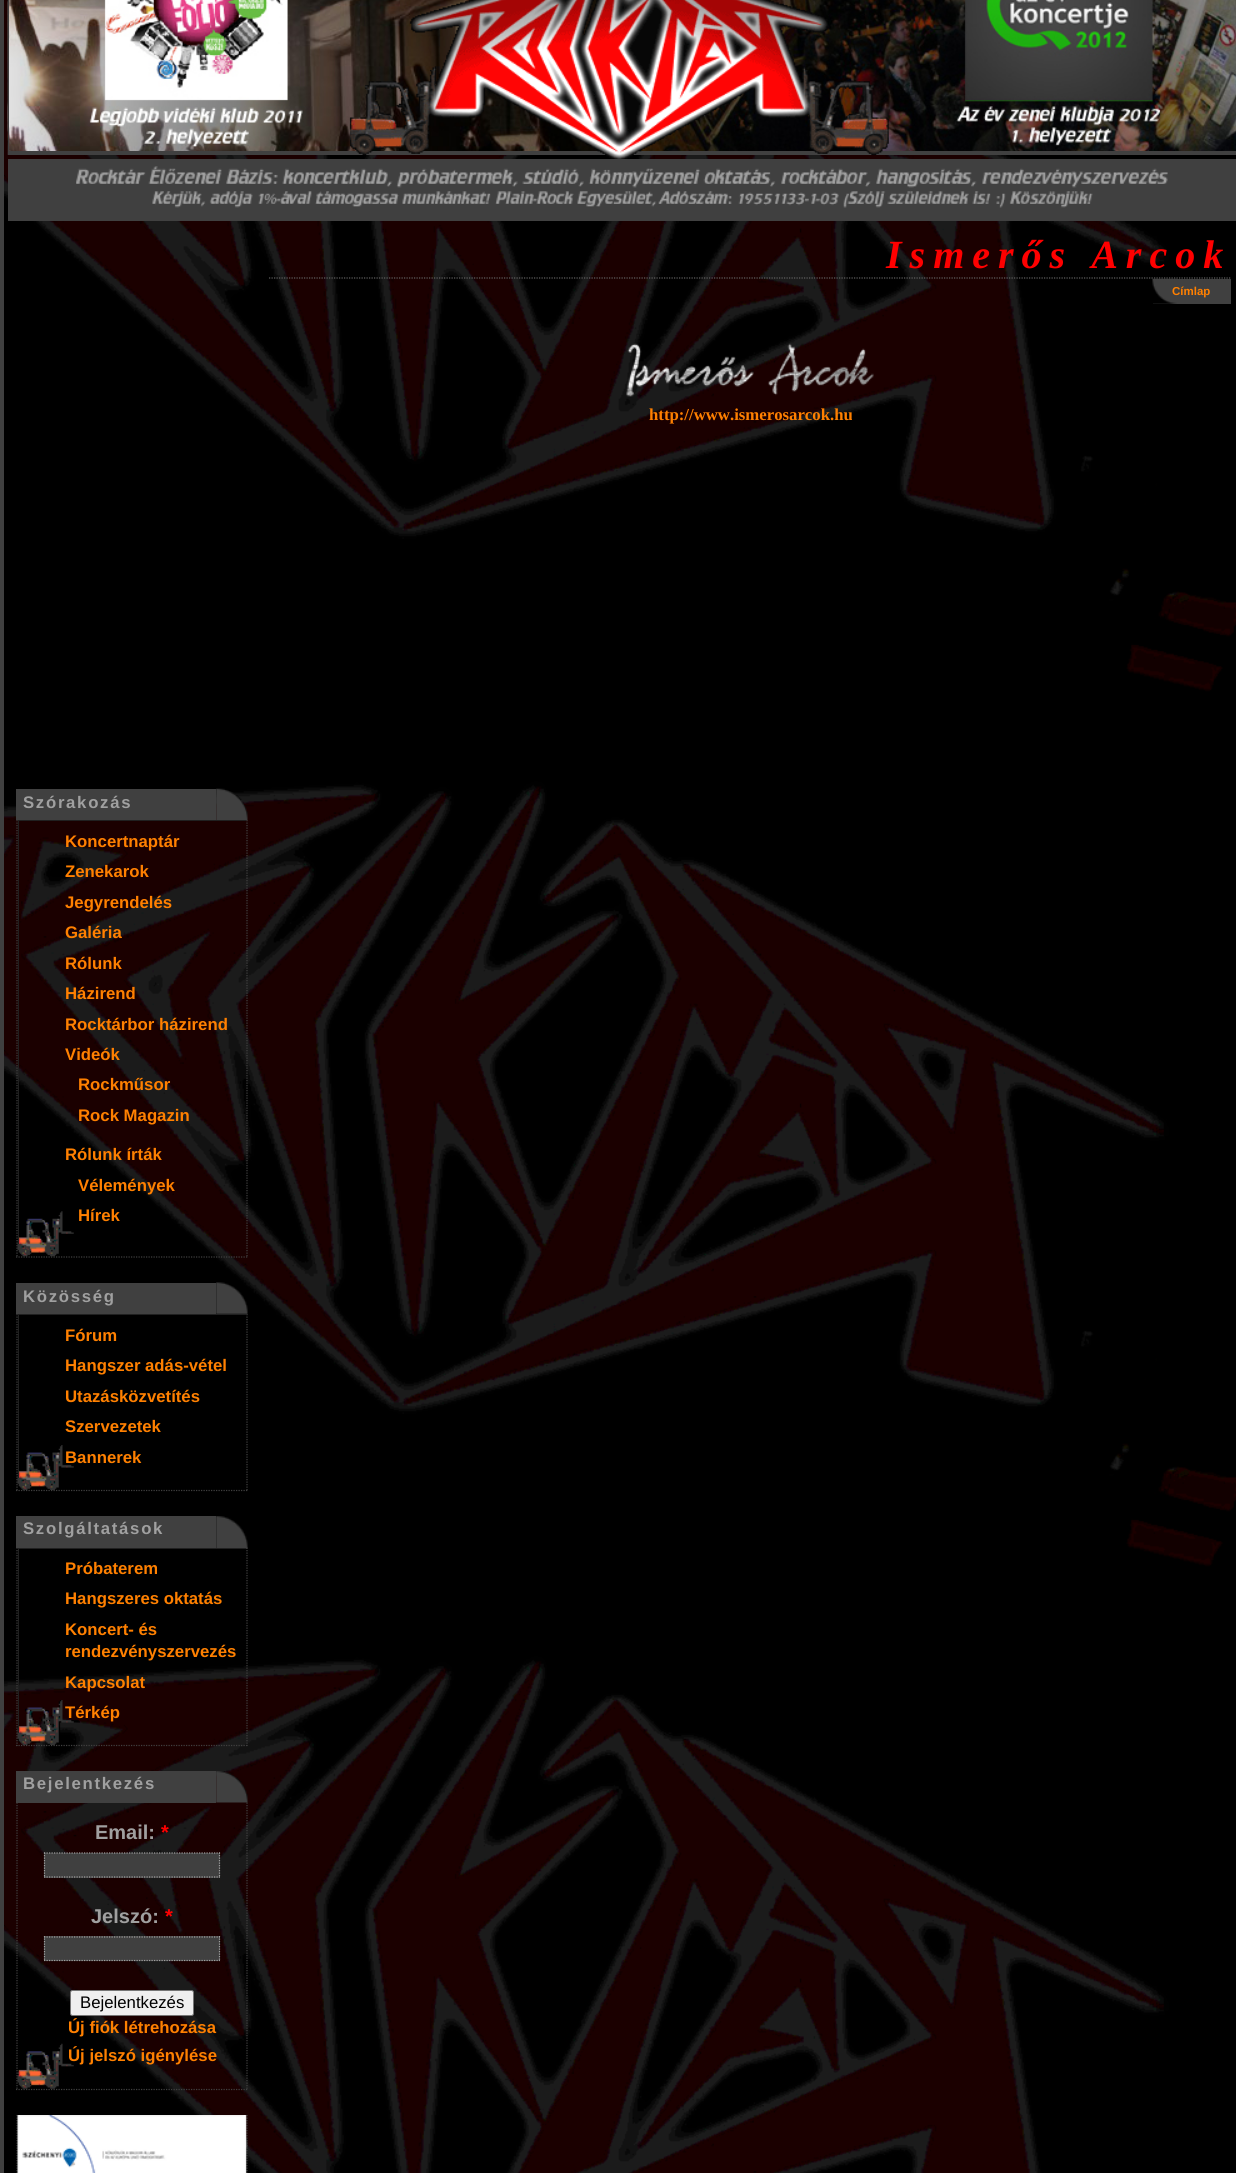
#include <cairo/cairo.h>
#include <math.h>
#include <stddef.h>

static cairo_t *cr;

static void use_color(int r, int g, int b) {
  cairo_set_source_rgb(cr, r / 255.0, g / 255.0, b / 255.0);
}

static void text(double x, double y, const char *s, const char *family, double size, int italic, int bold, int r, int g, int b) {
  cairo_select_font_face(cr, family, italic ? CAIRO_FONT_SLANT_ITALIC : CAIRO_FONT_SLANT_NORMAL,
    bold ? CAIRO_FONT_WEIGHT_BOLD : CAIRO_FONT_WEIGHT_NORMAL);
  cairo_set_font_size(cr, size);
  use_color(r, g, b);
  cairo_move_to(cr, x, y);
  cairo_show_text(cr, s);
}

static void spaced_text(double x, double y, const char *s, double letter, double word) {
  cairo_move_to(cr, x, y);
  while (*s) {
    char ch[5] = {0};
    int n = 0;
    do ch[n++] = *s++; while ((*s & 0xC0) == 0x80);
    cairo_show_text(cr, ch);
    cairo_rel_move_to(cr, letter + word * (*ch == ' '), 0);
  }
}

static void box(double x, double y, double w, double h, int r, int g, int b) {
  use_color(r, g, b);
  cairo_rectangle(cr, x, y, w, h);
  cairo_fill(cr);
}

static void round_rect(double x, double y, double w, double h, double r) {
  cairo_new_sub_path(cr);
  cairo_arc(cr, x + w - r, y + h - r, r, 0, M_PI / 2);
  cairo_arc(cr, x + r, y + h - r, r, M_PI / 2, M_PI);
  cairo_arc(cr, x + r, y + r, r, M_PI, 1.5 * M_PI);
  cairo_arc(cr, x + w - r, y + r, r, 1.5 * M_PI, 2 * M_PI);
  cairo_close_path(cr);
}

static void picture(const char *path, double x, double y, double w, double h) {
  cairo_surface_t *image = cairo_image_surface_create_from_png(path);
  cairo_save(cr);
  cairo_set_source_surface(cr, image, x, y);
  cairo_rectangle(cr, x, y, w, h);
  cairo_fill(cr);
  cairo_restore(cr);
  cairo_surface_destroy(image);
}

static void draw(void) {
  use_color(255, 255, 255);
  cairo_paint(cr);
  picture("img_01.png", 4, 0, 1232, 2173);
  box(0, 0, 4, 2173, 64, 64, 64);
  picture("img_02.png", 7, 0, 1229, 155);
  box(8, 151, 1228, 4, 64, 64, 64);
  box(8, 0, 1, 155, 64, 64, 64);
  picture("img_03.png", 349, 0, 540, 159);
  box(8, 159, 1228, 62, 64, 64, 64);
  picture("img_04.png", 76, 166, 1092, 42);
  cairo_new_path(cr);
  cairo_move_to(cr, 269, 278);
  cairo_line_to(cr, 1231, 278);
  use_color(96, 96, 96);
  cairo_set_line_width(cr, 1.2);
  cairo_set_dash(cr, (double[]){1.25, 1.25}, 2, 0);
  cairo_stroke(cr);
  box(1153, 279, 78, 25, 64, 64, 64);
  picture("img_05.png", 1152, 278, 25, 26);
  picture("img_06.png", 626, 343, 248, 54);
  picture("img_07.png", 216, 788, 32, 32);
  box(16, 789, 200, 31, 64, 64, 64);
  picture("img_08.png", 17, 1211, 57, 46);
  cairo_new_path(cr);
  cairo_move_to(cr, 247, 820);
  cairo_line_to(cr, 247, 1257.5);
  cairo_stroke(cr);
  cairo_new_path(cr);
  cairo_move_to(cr, 16, 1257);
  cairo_line_to(cr, 247.5, 1257);
  cairo_stroke(cr);
  cairo_new_path(cr);
  cairo_move_to(cr, 17, 820);
  cairo_line_to(cr, 17, 1257.5);
  cairo_stroke(cr);
  box(18, 820, 228, 1, 32, 32, 32);
  box(18, 820, 1, 424, 32, 32, 32);
  picture("img_09.png", 216, 1282, 32, 32);
  box(16, 1283, 200, 31, 64, 64, 64);
  picture("img_10.png", 17, 1445, 57, 45);
  cairo_new_path(cr);
  cairo_move_to(cr, 247, 1314);
  cairo_line_to(cr, 247, 1491);
  cairo_stroke(cr);
  cairo_new_path(cr);
  cairo_move_to(cr, 16, 1490.5);
  cairo_line_to(cr, 247.5, 1490.5);
  cairo_stroke(cr);
  cairo_new_path(cr);
  cairo_move_to(cr, 17, 1314);
  cairo_line_to(cr, 17, 1491);
  cairo_stroke(cr);
  box(18, 1314, 228, 1, 32, 32, 32);
  box(18, 1314, 1, 164, 32, 32, 32);
  picture("img_11.png", 216, 1516, 32, 33);
  box(16, 1516, 200, 32, 64, 64, 64);
  picture("img_12.png", 17, 1700, 63, 45);
  cairo_new_path(cr);
  cairo_move_to(cr, 247, 1547.5);
  cairo_line_to(cr, 247, 1746);
  cairo_stroke(cr);
  cairo_new_path(cr);
  cairo_move_to(cr, 16, 1745.5);
  cairo_line_to(cr, 247.5, 1745.5);
  cairo_stroke(cr);
  cairo_new_path(cr);
  cairo_move_to(cr, 17, 1547.5);
  cairo_line_to(cr, 17, 1746);
  cairo_stroke(cr);
  box(18, 1548, 228, 1, 32, 32, 32);
  box(18, 1548, 1, 185, 32, 32, 32);
  picture("img_13.png", 216, 1771, 32, 32);
  box(16, 1771, 200, 32, 64, 64, 64);
  picture("img_14.png", 17, 2043, 57, 46);
  cairo_new_path(cr);
  cairo_move_to(cr, 247, 1802.5);
  cairo_line_to(cr, 247, 2090);
  cairo_stroke(cr);
  cairo_new_path(cr);
  cairo_move_to(cr, 16, 2089.5);
  cairo_line_to(cr, 247.5, 2089.5);
  cairo_stroke(cr);
  cairo_new_path(cr);
  cairo_move_to(cr, 17, 1802.5);
  cairo_line_to(cr, 17, 2090);
  cairo_stroke(cr);
  box(44, 1853, 176, 25, 64, 64, 64);
  cairo_new_path(cr);
  cairo_move_to(cr, 44, 1853);
  cairo_line_to(cr, 220, 1853);
  use_color(160, 160, 160);
  cairo_stroke(cr);
  cairo_new_path(cr);
  cairo_move_to(cr, 219.5, 1852.5);
  cairo_line_to(cr, 219.5, 1877.5);
  cairo_stroke(cr);
  cairo_new_path(cr);
  cairo_move_to(cr, 44, 1877);
  cairo_line_to(cr, 220, 1877);
  cairo_stroke(cr);
  cairo_new_path(cr);
  cairo_move_to(cr, 44.5, 1852.5);
  cairo_line_to(cr, 44.5, 1877.5);
  cairo_stroke(cr);
  box(44, 1936, 176, 25, 64, 64, 64);
  cairo_new_path(cr);
  cairo_move_to(cr, 44, 1937);
  cairo_line_to(cr, 220, 1937);
  use_color(160, 160, 160);
  cairo_stroke(cr);
  cairo_new_path(cr);
  cairo_move_to(cr, 219.5, 1936);
  cairo_line_to(cr, 219.5, 1961);
  cairo_stroke(cr);
  cairo_new_path(cr);
  cairo_move_to(cr, 44, 1960.5);
  cairo_line_to(cr, 220, 1960.5);
  cairo_stroke(cr);
  cairo_new_path(cr);
  cairo_move_to(cr, 44.5, 1936);
  cairo_line_to(cr, 44.5, 1961);
  cairo_stroke(cr);
  use_color(239, 239, 239);
  round_rect(70.5, 1990.5, 123, 25, 2);
  cairo_fill_preserve(cr);
  use_color(118, 118, 118);
  cairo_set_line_width(cr, 1);
  cairo_set_dash(cr, NULL, 0, 0);
  cairo_stroke(cr);
  picture("img_15.png", 216, 2115, 32, 33);
  cairo_new_path(cr);
  cairo_move_to(cr, 247, 2115);
  cairo_line_to(cr, 247, 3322.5);
  use_color(64, 64, 64);
  cairo_set_line_width(cr, 1.2);
  cairo_set_dash(cr, (double[]){1.25, 1.25}, 2, 0);
  cairo_stroke(cr);
  cairo_new_path(cr);
  cairo_move_to(cr, 17, 2115);
  cairo_line_to(cr, 17, 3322.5);
  cairo_stroke(cr);
  picture("img_16.png", 17, 2115, 230, 58);
  cairo_select_font_face(cr, "Liberation Serif", CAIRO_FONT_SLANT_ITALIC, CAIRO_FONT_WEIGHT_BOLD);
  cairo_set_font_size(cr, 40);
  use_color(255, 0, 0);
  spaced_text(886, 268, "Ismerős Arcok", 8, 0);
  text(1172, 295, "Címlap", "Liberation Sans", 11.5, 0, 1, 255, 128, 0);
  text(649, 420, "http://www.ismerosarcok.hu", "Liberation Serif", 16.75, 0, 1, 255, 128, 0);
  cairo_select_font_face(cr, "Liberation Sans", CAIRO_FONT_SLANT_NORMAL, CAIRO_FONT_WEIGHT_BOLD);
  use_color(160, 160, 160);
  spaced_text(23, 808, "Szórakozás", 1.7, 0);
  text(65, 847, "Koncertnaptár", "Liberation Sans", 16.75, 0, 1, 255, 128, 0);
  text(65, 877, "Zenekarok", "Liberation Sans", 16.75, 0, 1, 255, 128, 0);
  text(65, 908, "Jegyrendelés", "Liberation Sans", 16.75, 0, 1, 255, 128, 0);
  text(65, 938, "Galéria", "Liberation Sans", 16.75, 0, 1, 255, 128, 0);
  text(65, 969, "Rólunk", "Liberation Sans", 16.75, 0, 1, 255, 128, 0);
  text(65, 999, "Házirend", "Liberation Sans", 16.75, 0, 1, 255, 128, 0);
  text(65, 1030, "Rocktárbor házirend", "Liberation Sans", 16.75, 0, 1, 255, 128, 0);
  text(65, 1060, "Videók", "Liberation Sans", 16.75, 0, 1, 255, 128, 0);
  text(78, 1090, "Rockműsor", "Liberation Sans", 16.75, 0, 1, 255, 128, 0);
  text(78, 1121, "Rock Magazin", "Liberation Sans", 16.75, 0, 1, 255, 128, 0);
  text(65, 1160, "Rólunk írták", "Liberation Sans", 16.75, 0, 1, 255, 128, 0);
  text(78, 1191, "Vélemények", "Liberation Sans", 16.75, 0, 1, 255, 128, 0);
  text(78, 1221, "Hírek", "Liberation Sans", 16.75, 0, 1, 255, 128, 0);
  use_color(160, 160, 160);
  spaced_text(23, 1302, "Közösség", 1.7, 0);
  text(65, 1341, "Fórum", "Liberation Sans", 16.75, 0, 1, 255, 128, 0);
  text(65, 1371, "Hangszer adás-vétel", "Liberation Sans", 16.75, 0, 1, 255, 128, 0);
  text(65, 1402, "Utazásközvetítés", "Liberation Sans", 16.75, 0, 1, 255, 128, 0);
  text(65, 1432, "Szervezetek", "Liberation Sans", 16.75, 0, 1, 255, 128, 0);
  text(65, 1463, "Bannerek", "Liberation Sans", 16.75, 0, 1, 255, 128, 0);
  use_color(160, 160, 160);
  spaced_text(23, 1534, "Szolgáltatások", 1.7, 0);
  text(65, 1574, "Próbaterem", "Liberation Sans", 16.75, 0, 1, 255, 128, 0);
  text(65, 1604, "Hangszeres oktatás", "Liberation Sans", 16.75, 0, 1, 255, 128, 0);
  text(65, 1635, "Koncert- és", "Liberation Sans", 16.75, 0, 1, 255, 128, 0);
  text(65, 1657, "rendezvényszervezés", "Liberation Sans", 16.75, 0, 1, 255, 128, 0);
  text(65, 1688, "Kapcsolat", "Liberation Sans", 16.75, 0, 1, 255, 128, 0);
  text(65, 1718, "Térkép", "Liberation Sans", 16.75, 0, 1, 255, 128, 0);
  use_color(160, 160, 160);
  spaced_text(23, 1789, "Bejelentkezés", 1.7, 0);
  text(95, 1839, "Email:", "Liberation Sans", 20, 0, 1, 160, 160, 160);
  text(161, 1839, "*", "Liberation Sans", 20, 0, 1, 255, 0, 0);
  text(91, 1923, "Jelszó:", "Liberation Sans", 20, 0, 1, 160, 160, 160);
  text(165, 1923, "*", "Liberation Sans", 20, 0, 1, 255, 0, 0);
  text(80, 2008, "Bejelentkezés", "Liberation Sans", 16.75, 0, 0, 0, 0, 0);
  text(68, 2033, "Új fiók létrehozása", "Liberation Sans", 16.75, 0, 1, 255, 128, 0);
  text(68, 2061, "Új jelszó igénylése", "Liberation Sans", 16.75, 0, 1, 255, 128, 0);
}

int main(void) {
  cairo_surface_t *surface = cairo_image_surface_create(CAIRO_FORMAT_RGB24, 1236, 2173);
  cr = cairo_create(surface);
  cairo_font_options_t *options = cairo_font_options_create();
  cairo_font_options_set_hint_metrics(options, CAIRO_HINT_METRICS_OFF);
  cairo_font_options_set_hint_style(options, CAIRO_HINT_STYLE_NONE);
  cairo_set_font_options(cr, options);
  cairo_set_miter_limit(cr, 4);
  draw();
  cairo_surface_write_to_png(surface, "out.png");
  cairo_font_options_destroy(options);
  cairo_destroy(cr);
  cairo_surface_destroy(surface);
  return 0;
}
